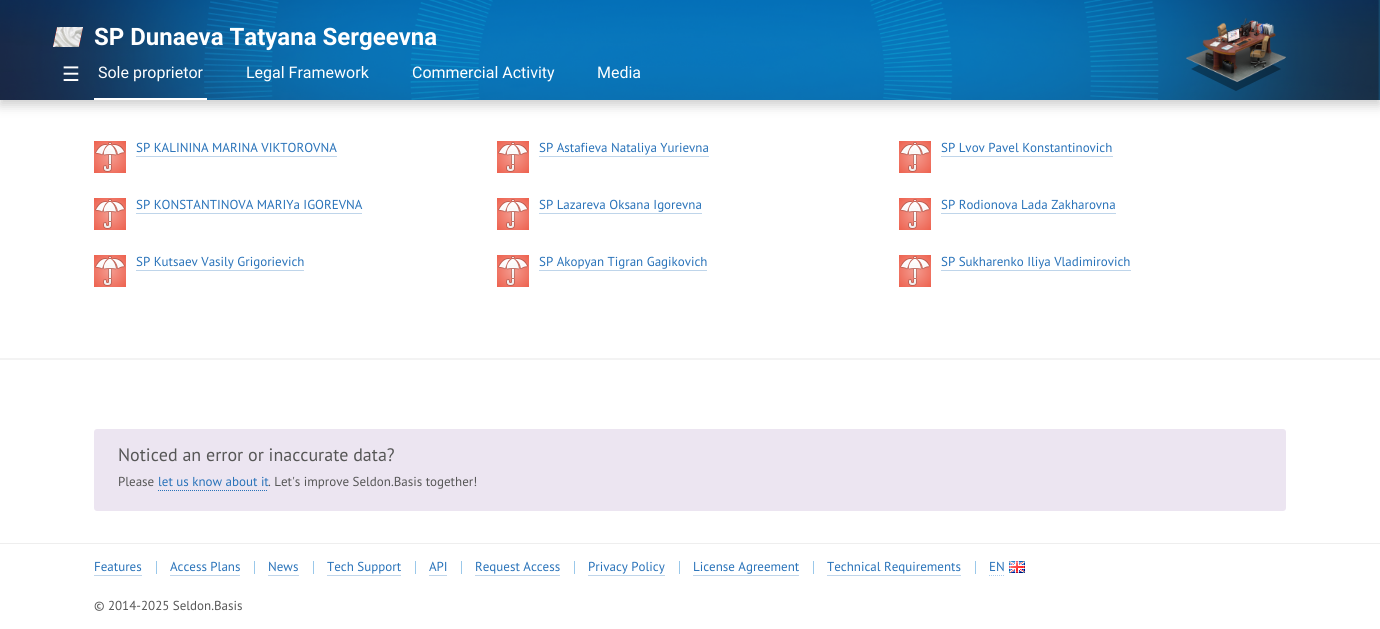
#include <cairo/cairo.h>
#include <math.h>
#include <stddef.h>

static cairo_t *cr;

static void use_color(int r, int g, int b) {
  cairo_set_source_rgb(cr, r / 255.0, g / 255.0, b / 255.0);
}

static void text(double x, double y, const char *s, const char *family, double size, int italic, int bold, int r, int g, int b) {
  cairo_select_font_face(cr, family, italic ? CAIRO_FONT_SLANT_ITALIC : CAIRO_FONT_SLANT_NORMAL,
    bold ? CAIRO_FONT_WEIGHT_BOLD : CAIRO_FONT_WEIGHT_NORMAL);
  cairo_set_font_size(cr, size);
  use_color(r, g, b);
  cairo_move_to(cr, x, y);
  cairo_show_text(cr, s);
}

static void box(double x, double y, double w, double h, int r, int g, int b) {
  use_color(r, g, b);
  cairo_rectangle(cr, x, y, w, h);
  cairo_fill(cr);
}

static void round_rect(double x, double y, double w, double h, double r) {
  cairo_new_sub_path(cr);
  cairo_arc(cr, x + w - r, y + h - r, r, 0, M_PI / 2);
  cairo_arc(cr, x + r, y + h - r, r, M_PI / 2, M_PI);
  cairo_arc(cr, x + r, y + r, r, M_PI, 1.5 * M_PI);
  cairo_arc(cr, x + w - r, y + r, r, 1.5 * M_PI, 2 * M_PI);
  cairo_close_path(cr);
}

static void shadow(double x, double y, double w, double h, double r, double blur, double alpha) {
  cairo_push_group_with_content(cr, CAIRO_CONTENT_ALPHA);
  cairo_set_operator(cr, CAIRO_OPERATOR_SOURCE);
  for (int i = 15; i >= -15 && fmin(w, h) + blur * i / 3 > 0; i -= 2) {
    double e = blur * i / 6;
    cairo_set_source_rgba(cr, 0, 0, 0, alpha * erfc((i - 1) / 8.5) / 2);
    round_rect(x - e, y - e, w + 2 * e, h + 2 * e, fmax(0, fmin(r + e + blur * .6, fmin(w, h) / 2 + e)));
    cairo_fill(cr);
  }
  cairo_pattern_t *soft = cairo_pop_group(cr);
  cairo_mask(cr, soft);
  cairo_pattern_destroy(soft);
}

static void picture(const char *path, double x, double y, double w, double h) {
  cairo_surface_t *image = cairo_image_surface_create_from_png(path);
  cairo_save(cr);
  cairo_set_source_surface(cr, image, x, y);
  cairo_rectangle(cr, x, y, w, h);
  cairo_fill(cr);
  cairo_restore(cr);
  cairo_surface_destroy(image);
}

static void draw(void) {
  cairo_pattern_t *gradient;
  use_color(255, 255, 255);
  cairo_paint(cr);
  use_color(0, 0, 0);
  shadow(0, 5, 1380, 100, 0, 6, 0.2);
  picture("img_01.png", 0, 0, 1380, 100);
  use_color(232, 56, 33);
  cairo_new_path(cr);
  cairo_move_to(cr, 57, 27);
  cairo_line_to(cr, 83, 27);
  cairo_line_to(cr, 79, 47);
  cairo_line_to(cr, 53, 47);
  cairo_close_path(cr);
  cairo_fill(cr);
  picture("img_02.png", 53, 27, 30, 20);
  cairo_set_source_rgba(cr, 0, 0, 0, 0.36);
  cairo_new_path(cr);
  cairo_move_to(cr, 1281, 69);
  cairo_line_to(cr, 1191, 69);
  cairo_line_to(cr, 1236, 46);
  cairo_close_path(cr);
  cairo_fill(cr);
  cairo_new_path(cr);
  cairo_move_to(cr, 1191, 69);
  cairo_line_to(cr, 1281, 69);
  cairo_line_to(cr, 1236, 91);
  cairo_close_path(cr);
  cairo_fill(cr);
  picture("img_03.png", 1186, 18, 100, 64);
  box(94, 98, 113, 2, 255, 255, 255);
  gradient = cairo_pattern_create_radial(110, 157, 0, 110, 157, 23);
  cairo_pattern_add_color_stop_rgba(gradient, 0, 0.957, 0.612, 0.565, 1);
  cairo_pattern_add_color_stop_rgba(gradient, 1, 0.929, 0.376, 0.302, 1);
  cairo_set_source(cr, gradient);
  cairo_pattern_destroy(gradient);
  cairo_rectangle(cr, 94, 141, 32, 32);
  cairo_fill(cr);
  picture("img_04.png", 95, 142, 30, 30);
  box(136, 156, 201, 1, 191, 213, 234);
  gradient = cairo_pattern_create_radial(110, 214, 0, 110, 214, 23);
  cairo_pattern_add_color_stop_rgba(gradient, 0, 0.957, 0.612, 0.565, 1);
  cairo_pattern_add_color_stop_rgba(gradient, 1, 0.929, 0.376, 0.302, 1);
  cairo_set_source(cr, gradient);
  cairo_pattern_destroy(gradient);
  cairo_rectangle(cr, 94, 198, 32, 32);
  cairo_fill(cr);
  picture("img_04.png", 95, 199, 30, 30);
  box(136, 213, 226, 1, 191, 213, 234);
  gradient = cairo_pattern_create_radial(110, 271, 0, 110, 271, 23);
  cairo_pattern_add_color_stop_rgba(gradient, 0, 0.957, 0.612, 0.565, 1);
  cairo_pattern_add_color_stop_rgba(gradient, 1, 0.929, 0.376, 0.302, 1);
  cairo_set_source(cr, gradient);
  cairo_pattern_destroy(gradient);
  cairo_rectangle(cr, 94, 255, 32, 32);
  cairo_fill(cr);
  picture("img_04.png", 95, 256, 30, 30);
  box(136, 270, 168, 1, 191, 213, 234);
  gradient = cairo_pattern_create_radial(513, 157, 0, 513, 157, 23);
  cairo_pattern_add_color_stop_rgba(gradient, 0, 0.957, 0.612, 0.565, 1);
  cairo_pattern_add_color_stop_rgba(gradient, 1, 0.929, 0.376, 0.302, 1);
  cairo_set_source(cr, gradient);
  cairo_pattern_destroy(gradient);
  cairo_rectangle(cr, 497, 141, 32, 32);
  cairo_fill(cr);
  picture("img_04.png", 498, 142, 30, 30);
  box(539, 156, 170, 1, 191, 213, 234);
  gradient = cairo_pattern_create_radial(513, 214, 0, 513, 214, 23);
  cairo_pattern_add_color_stop_rgba(gradient, 0, 0.957, 0.612, 0.565, 1);
  cairo_pattern_add_color_stop_rgba(gradient, 1, 0.929, 0.376, 0.302, 1);
  cairo_set_source(cr, gradient);
  cairo_pattern_destroy(gradient);
  cairo_rectangle(cr, 497, 198, 32, 32);
  cairo_fill(cr);
  picture("img_04.png", 498, 199, 30, 30);
  box(539, 213, 163, 1, 191, 213, 234);
  gradient = cairo_pattern_create_radial(513, 271, 0, 513, 271, 23);
  cairo_pattern_add_color_stop_rgba(gradient, 0, 0.957, 0.612, 0.565, 1);
  cairo_pattern_add_color_stop_rgba(gradient, 1, 0.929, 0.376, 0.302, 1);
  cairo_set_source(cr, gradient);
  cairo_pattern_destroy(gradient);
  cairo_rectangle(cr, 497, 255, 32, 32);
  cairo_fill(cr);
  picture("img_04.png", 498, 256, 30, 30);
  box(539, 270, 168, 1, 191, 213, 234);
  gradient = cairo_pattern_create_radial(915, 157, 0, 915, 157, 23);
  cairo_pattern_add_color_stop_rgba(gradient, 0, 0.957, 0.612, 0.565, 1);
  cairo_pattern_add_color_stop_rgba(gradient, 1, 0.929, 0.376, 0.302, 1);
  cairo_set_source(cr, gradient);
  cairo_pattern_destroy(gradient);
  cairo_rectangle(cr, 899, 141, 32, 32);
  cairo_fill(cr);
  picture("img_04.png", 900, 142, 30, 30);
  box(941, 156, 172, 1, 191, 213, 234);
  gradient = cairo_pattern_create_radial(915, 214, 0, 915, 214, 23);
  cairo_pattern_add_color_stop_rgba(gradient, 0, 0.957, 0.612, 0.565, 1);
  cairo_pattern_add_color_stop_rgba(gradient, 1, 0.929, 0.376, 0.302, 1);
  cairo_set_source(cr, gradient);
  cairo_pattern_destroy(gradient);
  cairo_rectangle(cr, 899, 198, 32, 32);
  cairo_fill(cr);
  picture("img_04.png", 900, 199, 30, 30);
  box(941, 213, 175, 1, 191, 213, 234);
  gradient = cairo_pattern_create_radial(915, 271, 0, 915, 271, 23);
  cairo_pattern_add_color_stop_rgba(gradient, 0, 0.957, 0.612, 0.565, 1);
  cairo_pattern_add_color_stop_rgba(gradient, 1, 0.929, 0.376, 0.302, 1);
  cairo_set_source(cr, gradient);
  cairo_pattern_destroy(gradient);
  cairo_rectangle(cr, 899, 255, 32, 32);
  cairo_fill(cr);
  picture("img_04.png", 900, 256, 30, 30);
  box(941, 270, 190, 1, 191, 213, 234);
  box(0, 358, 1380, 2, 243, 243, 243);
  use_color(236, 229, 241);
  round_rect(94, 429, 1192, 82, 3);
  cairo_fill(cr);
  cairo_new_path(cr);
  cairo_move_to(cr, 158, 490.5);
  cairo_line_to(cr, 268, 490.5);
  use_color(40, 114, 185);
  cairo_set_line_width(cr, 1);
  cairo_set_dash(cr, (double[]){1, 1}, 2, 0);
  cairo_stroke(cr);
  box(0, 543, 1380, 1, 238, 238, 238);
  box(94, 575, 48, 1, 191, 213, 234);
  box(156, 561, 1, 13, 154, 200, 234);
  box(170, 575, 70, 1, 191, 213, 234);
  box(254, 561, 1, 13, 154, 200, 234);
  box(268, 575, 31, 1, 191, 213, 234);
  box(313, 561, 1, 13, 154, 200, 234);
  box(327, 575, 74, 1, 191, 213, 234);
  box(415, 561, 1, 13, 154, 200, 234);
  box(429, 575, 18, 1, 191, 213, 234);
  box(461, 561, 1, 13, 154, 200, 234);
  box(475, 575, 85, 1, 191, 213, 234);
  box(574, 561, 1, 13, 154, 200, 234);
  box(588, 575, 77, 1, 191, 213, 234);
  box(679, 561, 1, 13, 154, 200, 234);
  box(693, 575, 106, 1, 191, 213, 234);
  box(813, 561, 1, 13, 154, 200, 234);
  box(827, 575, 134, 1, 191, 213, 234);
  box(975, 561, 1, 13, 154, 200, 234);
  cairo_new_path(cr);
  cairo_move_to(cr, 989, 575.5);
  cairo_line_to(cr, 1005, 575.5);
  use_color(172, 205, 237);
  cairo_stroke(cr);
  picture("img_05.png", 1009, 561, 16, 12);
  text(94, 45, "SP Dunaeva Tatyana Sergeevna", "Roboto", 24, 0, 1, 255, 255, 255);
  text(62, 81, "☰", "DejaVu Sans", 20, 0, 0, 255, 255, 255);
  text(98, 78, "Sole proprietor", "Roboto", 16, 0, 0, 255, 255, 255);
  text(246, 78, "Legal Framework", "Roboto", 16, 0, 0, 255, 255, 255);
  text(412, 78, "Commercial Activity", "Roboto", 16, 0, 0, 255, 255, 255);
  text(597, 78, "Media", "Roboto", 16, 0, 0, 255, 255, 255);
  text(136, 152, "SP KALININA MARINA VIKTOROVNA", "PT Sans", 13, 0, 0, 40, 114, 185);
  text(136, 209, "SP KONSTANTINOVA MARIYa IGOREVNA", "PT Sans", 13, 0, 0, 40, 114, 185);
  text(136, 266, "SP Kutsaev Vasily Grigorievich", "PT Sans", 13, 0, 0, 40, 114, 185);
  text(539, 152, "SP Astafieva Nataliya Yurievna", "PT Sans", 13, 0, 0, 40, 114, 185);
  text(539, 209, "SP Lazareva Oksana Igorevna", "PT Sans", 13, 0, 0, 40, 114, 185);
  text(539, 266, "SP Akopyan Tigran Gagikovich", "PT Sans", 13, 0, 0, 40, 114, 185);
  text(941, 152, "SP Lvov Pavel Konstantinovich", "PT Sans", 13, 0, 0, 40, 114, 185);
  text(941, 209, "SP Rodionova Lada Zakharovna", "PT Sans", 13, 0, 0, 40, 114, 185);
  text(941, 266, "SP Sukharenko Iliya Vladimirovich", "PT Sans", 13, 0, 0, 40, 114, 185);
  text(118, 461, "Noticed an error or inaccurate data?", "PT Sans", 18, 0, 0, 86, 86, 86);
  text(118, 486, "Please", "PT Sans", 13, 0, 0, 86, 86, 86);
  text(158, 486, "let us know about it", "PT Sans", 13, 0, 0, 40, 114, 185);
  text(268, 486, ". Let's improve Seldon.Basis together!", "PT Sans", 13, 0, 0, 86, 86, 86);
  text(94, 571, "Features", "PT Sans", 13, 0, 0, 40, 114, 185);
  text(170, 571, "Access Plans", "PT Sans", 13, 0, 0, 40, 114, 185);
  text(268, 571, "News", "PT Sans", 13, 0, 0, 40, 114, 185);
  text(327, 571, "Tech Support", "PT Sans", 13, 0, 0, 40, 114, 185);
  text(429, 571, "API", "PT Sans", 13, 0, 0, 40, 114, 185);
  text(475, 571, "Request Access", "PT Sans", 13, 0, 0, 40, 114, 185);
  text(588, 571, "Privacy Policy", "PT Sans", 13, 0, 0, 40, 114, 185);
  text(693, 571, "License Agreement", "PT Sans", 13, 0, 0, 40, 114, 185);
  text(827, 571, "Technical Requirements", "PT Sans", 13, 0, 0, 40, 114, 185);
  text(989, 571, "EN", "PT Sans", 13, 0, 0, 40, 114, 185);
  text(94, 610, "© 2014-2025 Seldon.Basis", "PT Sans", 13, 0, 0, 86, 86, 86);
}

int main(void) {
  cairo_surface_t *surface = cairo_image_surface_create(CAIRO_FORMAT_RGB24, 1380, 629);
  cr = cairo_create(surface);
  cairo_font_options_t *options = cairo_font_options_create();
  cairo_font_options_set_hint_metrics(options, CAIRO_HINT_METRICS_OFF);
  cairo_font_options_set_hint_style(options, CAIRO_HINT_STYLE_NONE);
  cairo_set_font_options(cr, options);
  cairo_set_miter_limit(cr, 4);
  draw();
  cairo_surface_write_to_png(surface, "out.png");
  cairo_font_options_destroy(options);
  cairo_destroy(cr);
  cairo_surface_destroy(surface);
  return 0;
}
